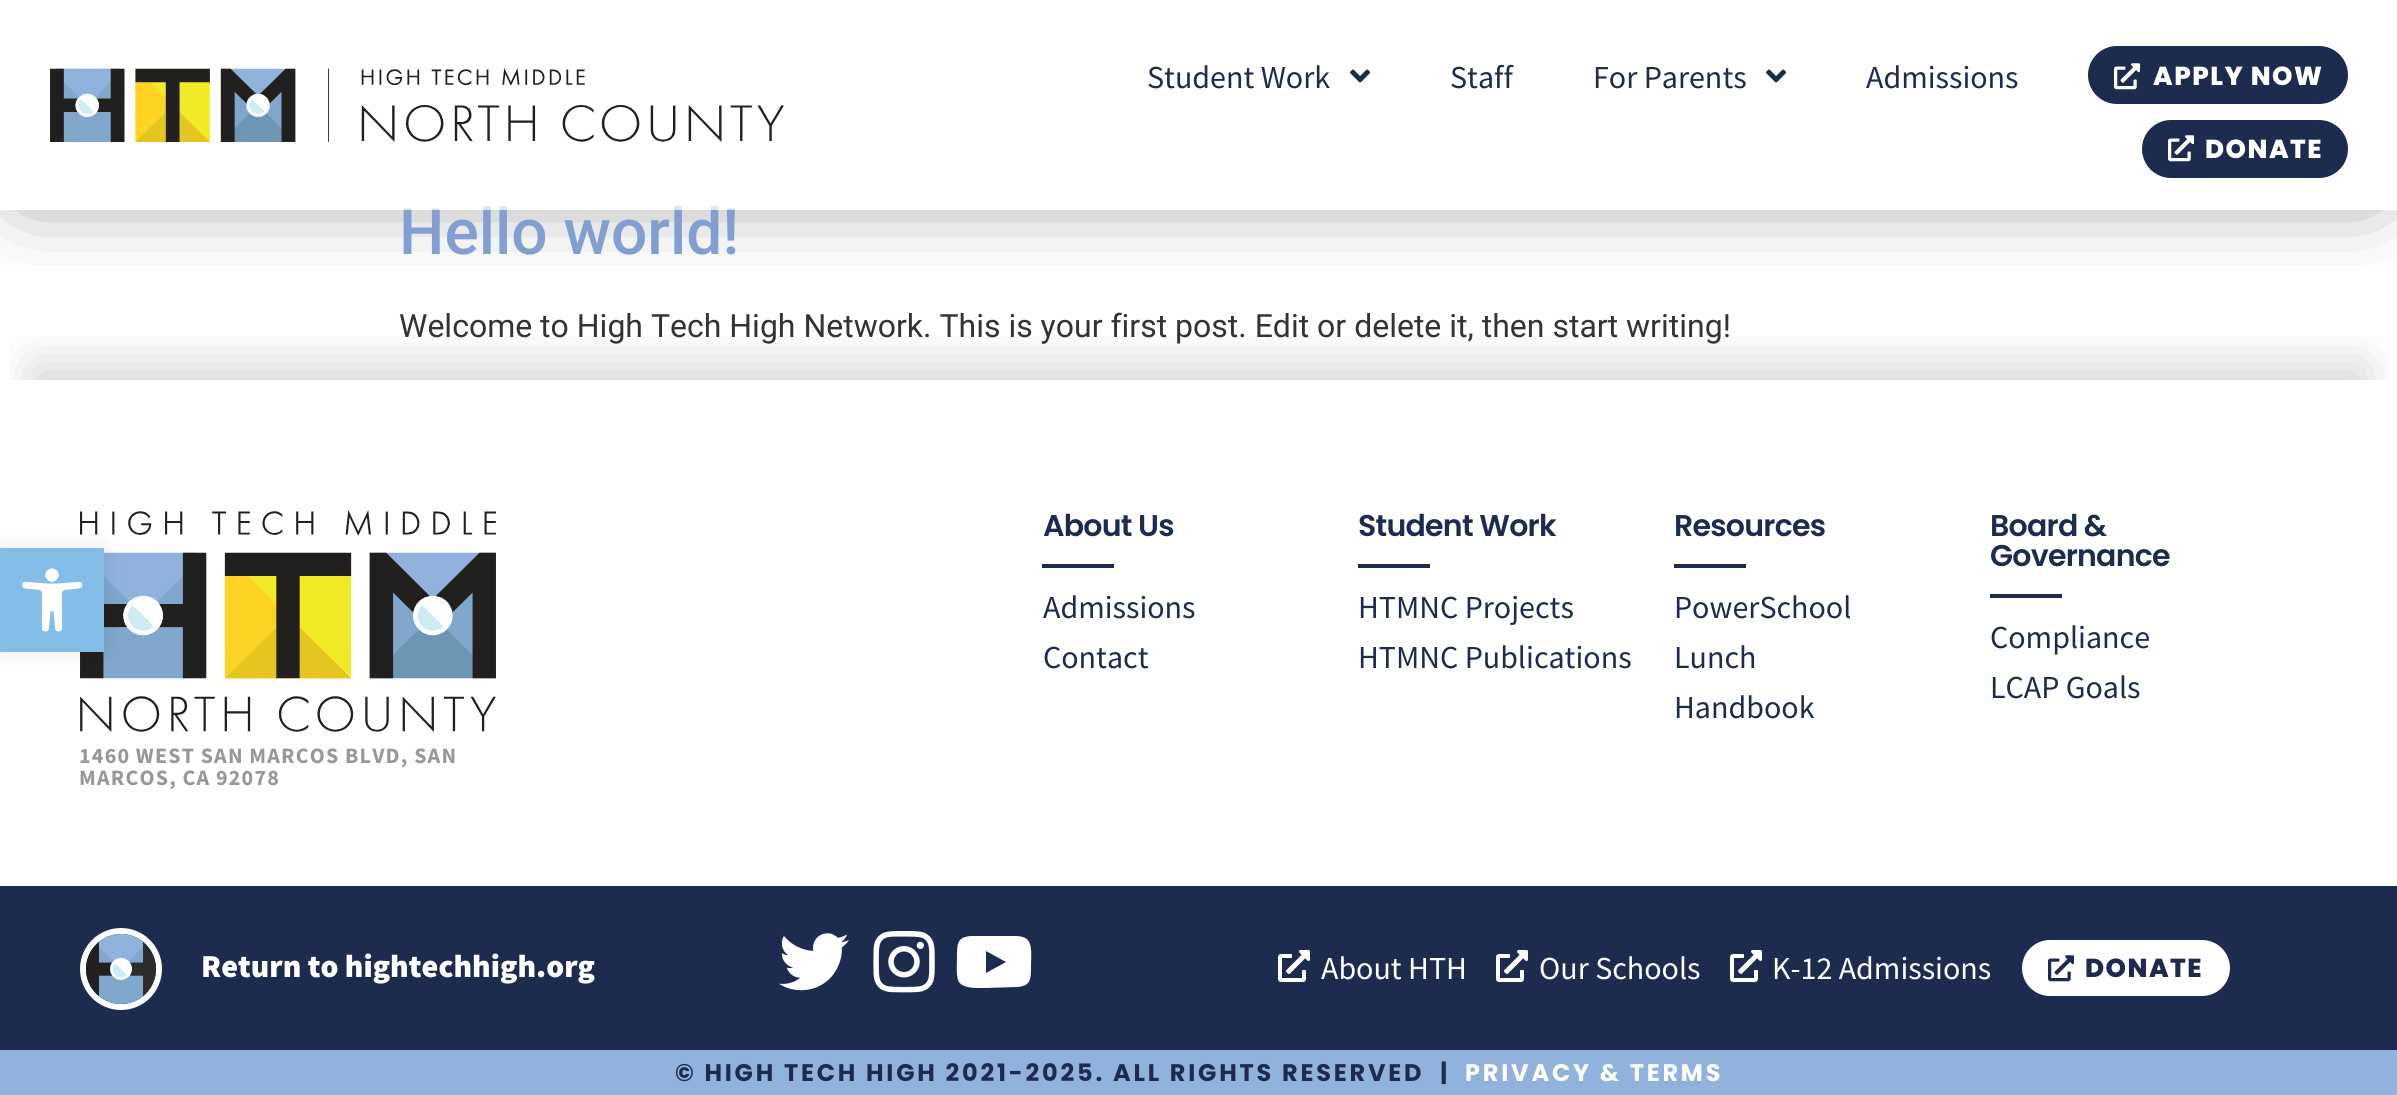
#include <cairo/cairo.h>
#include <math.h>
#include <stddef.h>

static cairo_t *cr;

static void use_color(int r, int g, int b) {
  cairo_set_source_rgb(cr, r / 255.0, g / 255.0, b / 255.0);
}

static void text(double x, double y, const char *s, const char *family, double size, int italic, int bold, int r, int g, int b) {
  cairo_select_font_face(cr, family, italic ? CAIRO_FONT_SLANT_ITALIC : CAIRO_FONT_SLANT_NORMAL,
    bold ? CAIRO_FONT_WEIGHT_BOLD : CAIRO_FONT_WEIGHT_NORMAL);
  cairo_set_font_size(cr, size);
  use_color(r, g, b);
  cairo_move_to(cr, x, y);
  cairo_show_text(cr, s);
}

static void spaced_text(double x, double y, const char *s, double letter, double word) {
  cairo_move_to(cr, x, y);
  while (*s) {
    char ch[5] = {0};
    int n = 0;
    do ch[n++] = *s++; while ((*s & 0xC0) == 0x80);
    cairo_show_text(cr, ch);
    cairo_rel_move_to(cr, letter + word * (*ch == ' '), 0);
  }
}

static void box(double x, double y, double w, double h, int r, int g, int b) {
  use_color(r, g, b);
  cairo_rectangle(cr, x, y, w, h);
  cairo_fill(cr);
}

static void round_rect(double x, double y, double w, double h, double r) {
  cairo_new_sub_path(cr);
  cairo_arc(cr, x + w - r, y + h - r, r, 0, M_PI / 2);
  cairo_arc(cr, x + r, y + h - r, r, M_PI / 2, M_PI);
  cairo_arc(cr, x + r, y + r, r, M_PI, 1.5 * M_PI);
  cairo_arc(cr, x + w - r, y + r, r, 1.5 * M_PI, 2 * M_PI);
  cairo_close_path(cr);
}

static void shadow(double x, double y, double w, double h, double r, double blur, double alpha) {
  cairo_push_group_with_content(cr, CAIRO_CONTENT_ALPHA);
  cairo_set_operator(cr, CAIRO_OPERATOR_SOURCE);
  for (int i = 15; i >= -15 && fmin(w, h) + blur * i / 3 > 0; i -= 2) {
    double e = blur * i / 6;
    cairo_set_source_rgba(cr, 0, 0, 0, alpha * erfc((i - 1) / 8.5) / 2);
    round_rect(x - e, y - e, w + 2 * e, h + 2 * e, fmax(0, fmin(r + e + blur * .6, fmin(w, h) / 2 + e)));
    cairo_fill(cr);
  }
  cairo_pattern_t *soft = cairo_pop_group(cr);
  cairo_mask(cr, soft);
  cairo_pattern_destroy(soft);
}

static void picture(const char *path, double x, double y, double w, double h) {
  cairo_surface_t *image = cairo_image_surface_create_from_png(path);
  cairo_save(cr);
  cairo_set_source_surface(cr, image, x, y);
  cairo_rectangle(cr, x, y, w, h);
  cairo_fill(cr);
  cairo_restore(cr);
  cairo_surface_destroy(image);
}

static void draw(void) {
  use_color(255, 255, 255);
  cairo_paint(cr);
  cairo_save(cr);
  cairo_rectangle(cr, 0, 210, 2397, 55);
  cairo_clip(cr);
  use_color(0, 0, 0);
  shadow(26, 28, 2346, 158, 0, 44, 0.55);
  cairo_restore(cr);
  picture("img_01.png", 50, 68, 734, 74);
  picture("img_02.png", 1350, 69, 20, 14);
  picture("img_02.png", 1766, 69, 20, 14);
  use_color(29, 43, 79);
  round_rect(2088, 46, 260, 58, 29);
  cairo_fill(cr);
  picture("img_03.png", 2114, 63, 26, 27);
  round_rect(2142, 120, 206, 58, 29);
  cairo_fill(cr);
  picture("img_03.png", 2168, 135, 26, 27);
  cairo_save(cr);
  cairo_rectangle(cr, 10, 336, 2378, 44);
  cairo_clip(cr);
  use_color(0, 0, 0);
  shadow(34, 366, 2330, 438, 0, 25, 0.17);
  cairo_restore(cr);
  picture("img_05.png", 80, 510, 416, 222);
  use_color(0, 0, 0);
  shadow(0, 548, 104, 104, 0, 10, 0.1);
  box(0, 548, 104, 104, 132, 190, 232);
  picture("img_04.png", 22, 568, 61, 64);
  box(1042, 564, 72, 4, 29, 43, 79);
  box(1358, 564, 72, 4, 29, 43, 79);
  box(1674, 564, 72, 4, 29, 43, 79);
  box(1990, 594, 72, 4, 29, 43, 79);
  box(0, 886, 2397, 164, 29, 43, 79);
  cairo_arc(cr, 121, 969, 38, 0, 2 * M_PI);
  use_color(255, 255, 255);
  cairo_set_line_width(cr, 6);
  cairo_stroke(cr);
  picture("img_06.png", 86, 934, 70, 70);
  picture("img_07.png", 779, 933, 70, 58);
  picture("img_08.png", 873, 931, 62, 62);
  cairo_new_path(cr);
  cairo_move_to(cr, 1030, 944);
  cairo_curve_to(cr, 1032, 951, 1031, 959, 1031, 967);
  cairo_curve_to(cr, 1031, 979, 1031, 986, 1017, 987);
  cairo_line_to(cr, 984, 988);
  cairo_curve_to(cr, 977, 988, 961, 989, 958, 980);
  cairo_curve_to(cr, 956, 973, 957, 964, 957, 957);
  cairo_curve_to(cr, 957, 944, 957, 937, 971, 936);
  cairo_line_to(cr, 988, 936);
  cairo_line_to(cr, 1010, 936);
  cairo_curve_to(cr, 1017, 936, 1027, 935, 1030, 944);
  cairo_close_path(cr);
  cairo_move_to(cr, 986, 973);
  cairo_line_to(cr, 1006, 962);
  cairo_line_to(cr, 986, 951);
  cairo_close_path(cr);
  cairo_fill(cr);
  picture("img_09.png", 1278, 950, 32, 32);
  picture("img_09.png", 1496, 950, 32, 32);
  picture("img_09.png", 1730, 950, 32, 32);
  round_rect(2022, 940, 208, 56, 28);
  cairo_fill(cr);
  picture("img_10.png", 2048, 955, 26, 27);
  box(0, 1050, 2397, 45, 144, 178, 221);
  text(1147, 88, "Student Work", "Source Sans Pro", 32, 0, 0, 29, 43, 79);
  text(1450, 88, "Staff", "Source Sans Pro", 32, 0, 0, 29, 43, 79);
  text(1593, 88, "For Parents", "Source Sans Pro", 32, 0, 0, 29, 43, 79);
  text(1866, 88, "Admissions", "Source Sans Pro", 32, 0, 0, 29, 43, 79);
  cairo_select_font_face(cr, "Poppins ExtraBold", CAIRO_FONT_SLANT_NORMAL, CAIRO_FONT_WEIGHT_NORMAL);
  cairo_set_font_size(cr, 26);
  use_color(255, 255, 255);
  spaced_text(2153, 85, "APPLY NOW", 1.5, 0);
  spaced_text(2205, 158, "DONATE", 1.5, 0);
  text(399, 254, "Hello world!", "Roboto Medium", 64, 0, 0, 131, 159, 210);
  cairo_set_source_rgba(cr, 1, 1, 1, 0.75);
  cairo_rectangle(cr, 403, 206, 332, 4);
  cairo_fill(cr);
  text(399, 337, "Welcome to High Tech High Network. This is your first post. Edit or delete it, then start writing!", "Roboto", 32, 0, 0, 51, 51, 51);
  cairo_select_font_face(cr, "Poppins SemiBold", CAIRO_FONT_SLANT_NORMAL, CAIRO_FONT_WEIGHT_NORMAL);
  cairo_set_font_size(cr, 30);
  use_color(29, 43, 79);
  spaced_text(1043, 536, "About Us", -0.75, 0);
  text(1043, 618, "Admissions", "Source Sans Pro", 32, 0, 0, 29, 43, 79);
  text(1043, 668, "Contact", "Source Sans Pro", 32, 0, 0, 29, 43, 79);
  cairo_select_font_face(cr, "Poppins SemiBold", CAIRO_FONT_SLANT_NORMAL, CAIRO_FONT_WEIGHT_NORMAL);
  cairo_set_font_size(cr, 30);
  spaced_text(1358, 536, "Student Work", -0.75, 0);
  text(1358, 618, "HTMNC Projects", "Source Sans Pro", 32, 0, 0, 29, 43, 79);
  text(1358, 668, "HTMNC Publications", "Source Sans Pro", 32, 0, 0, 29, 43, 79);
  cairo_select_font_face(cr, "Poppins SemiBold", CAIRO_FONT_SLANT_NORMAL, CAIRO_FONT_WEIGHT_NORMAL);
  cairo_set_font_size(cr, 30);
  spaced_text(1674, 536, "Resources", -0.75, 0);
  text(1674, 618, "PowerSchool", "Source Sans Pro", 32, 0, 0, 29, 43, 79);
  text(1674, 668, "Lunch", "Source Sans Pro", 32, 0, 0, 29, 43, 79);
  text(1674, 718, "Handbook", "Source Sans Pro", 32, 0, 0, 29, 43, 79);
  cairo_select_font_face(cr, "Poppins SemiBold", CAIRO_FONT_SLANT_NORMAL, CAIRO_FONT_WEIGHT_NORMAL);
  cairo_set_font_size(cr, 30);
  spaced_text(1990, 536, "Board &", -0.75, 0);
  spaced_text(1990, 566, "Governance", -0.75, 0);
  text(1990, 648, "Compliance", "Source Sans Pro", 32, 0, 0, 29, 43, 79);
  text(1990, 698, "LCAP Goals", "Source Sans Pro", 32, 0, 0, 29, 43, 79);
  cairo_select_font_face(cr, "Source Sans Pro", CAIRO_FONT_SLANT_NORMAL, CAIRO_FONT_WEIGHT_BOLD);
  cairo_set_font_size(cr, 22);
  use_color(152, 152, 152);
  spaced_text(79, 763, "1460 WEST SAN MARCOS BLVD, SAN", 1.2, 0);
  spaced_text(79, 785, "MARCOS, CA 92078", 1.2, 0);
  text(201, 977, "Return to hightechhigh.org", "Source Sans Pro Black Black", 32, 0, 0, 255, 255, 255);
  text(1321, 979, "About HTH", "Source Sans Pro", 32, 0, 0, 255, 255, 255);
  text(1539, 979, "Our Schools", "Source Sans Pro", 32, 0, 0, 255, 255, 255);
  text(1772, 979, "K-12 Admissions", "Source Sans Pro", 32, 0, 0, 255, 255, 255);
  cairo_select_font_face(cr, "Poppins ExtraBold", CAIRO_FONT_SLANT_NORMAL, CAIRO_FONT_WEIGHT_NORMAL);
  cairo_set_font_size(cr, 26);
  use_color(29, 43, 79);
  spaced_text(2085, 977, "DONATE", 1.5, 0);
  cairo_select_font_face(cr, "Poppins", CAIRO_FONT_SLANT_NORMAL, CAIRO_FONT_WEIGHT_BOLD);
  cairo_set_font_size(cr, 24);
  spaced_text(675, 1081, "© HIGH TECH HIGH 2021-2025. ALL RIGHTS RESERVED  |", 2.8, 0);
  use_color(255, 255, 255);
  spaced_text(1465, 1081, "PRIVACY & TERMS", 2.8, 0);
}

int main(void) {
  cairo_surface_t *surface = cairo_image_surface_create(CAIRO_FORMAT_RGB24, 2397, 1095);
  cr = cairo_create(surface);
  cairo_font_options_t *options = cairo_font_options_create();
  cairo_font_options_set_hint_metrics(options, CAIRO_HINT_METRICS_OFF);
  cairo_font_options_set_hint_style(options, CAIRO_HINT_STYLE_NONE);
  cairo_set_font_options(cr, options);
  cairo_set_miter_limit(cr, 4);
  draw();
  cairo_surface_write_to_png(surface, "out.png");
  cairo_font_options_destroy(options);
  cairo_destroy(cr);
  cairo_surface_destroy(surface);
  return 0;
}
